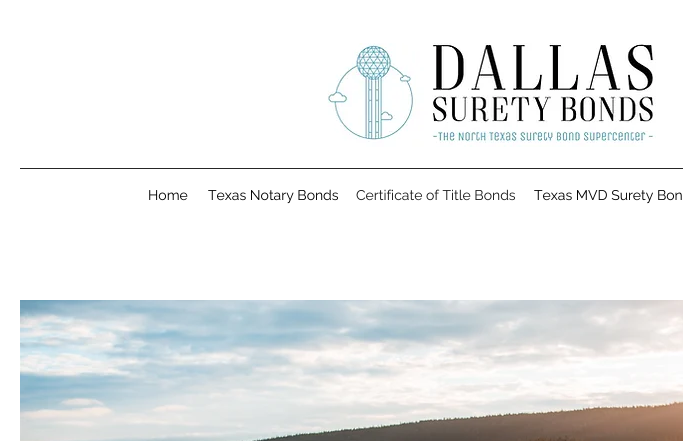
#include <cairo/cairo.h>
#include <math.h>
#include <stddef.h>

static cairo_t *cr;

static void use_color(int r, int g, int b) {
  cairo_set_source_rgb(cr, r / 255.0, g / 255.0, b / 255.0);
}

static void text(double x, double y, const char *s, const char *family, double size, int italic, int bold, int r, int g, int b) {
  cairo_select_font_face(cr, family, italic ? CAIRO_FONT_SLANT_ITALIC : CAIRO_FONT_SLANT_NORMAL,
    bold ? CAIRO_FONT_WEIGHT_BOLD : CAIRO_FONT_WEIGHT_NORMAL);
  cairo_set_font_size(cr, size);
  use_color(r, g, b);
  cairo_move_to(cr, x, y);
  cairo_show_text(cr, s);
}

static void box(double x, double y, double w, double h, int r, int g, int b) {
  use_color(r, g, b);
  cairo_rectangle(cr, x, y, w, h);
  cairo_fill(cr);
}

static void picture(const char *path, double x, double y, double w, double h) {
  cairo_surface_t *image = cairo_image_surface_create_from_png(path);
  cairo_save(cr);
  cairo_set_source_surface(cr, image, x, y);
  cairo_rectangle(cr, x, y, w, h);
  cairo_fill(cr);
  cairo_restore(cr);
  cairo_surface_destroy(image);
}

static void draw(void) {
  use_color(255, 255, 255);
  cairo_paint(cr);
  picture("img_01.png", 327, 43, 329, 104);
  box(20, 168, 663, 1, 38, 38, 38);
  picture("img_02.png", 20, 300, 663, 141);
  text(148, 200, "Home", "Raleway", 14, 0, 0, 0, 0, 0);
  text(208, 200, "Texas Notary Bonds", "Raleway", 14, 0, 0, 0, 0, 0);
  text(356, 200, "Certificate of Title Bonds", "Raleway", 14, 0, 0, 25, 25, 25);
  text(534, 200, "Texas MVD Surety Bon", "Raleway", 14, 0, 0, 0, 0, 0);
}

int main(void) {
  cairo_surface_t *surface = cairo_image_surface_create(CAIRO_FORMAT_RGB24, 683, 441);
  cr = cairo_create(surface);
  cairo_font_options_t *options = cairo_font_options_create();
  cairo_font_options_set_hint_metrics(options, CAIRO_HINT_METRICS_OFF);
  cairo_font_options_set_hint_style(options, CAIRO_HINT_STYLE_NONE);
  cairo_set_font_options(cr, options);
  cairo_set_miter_limit(cr, 4);
  draw();
  cairo_surface_write_to_png(surface, "out.png");
  cairo_font_options_destroy(options);
  cairo_destroy(cr);
  cairo_surface_destroy(surface);
  return 0;
}
